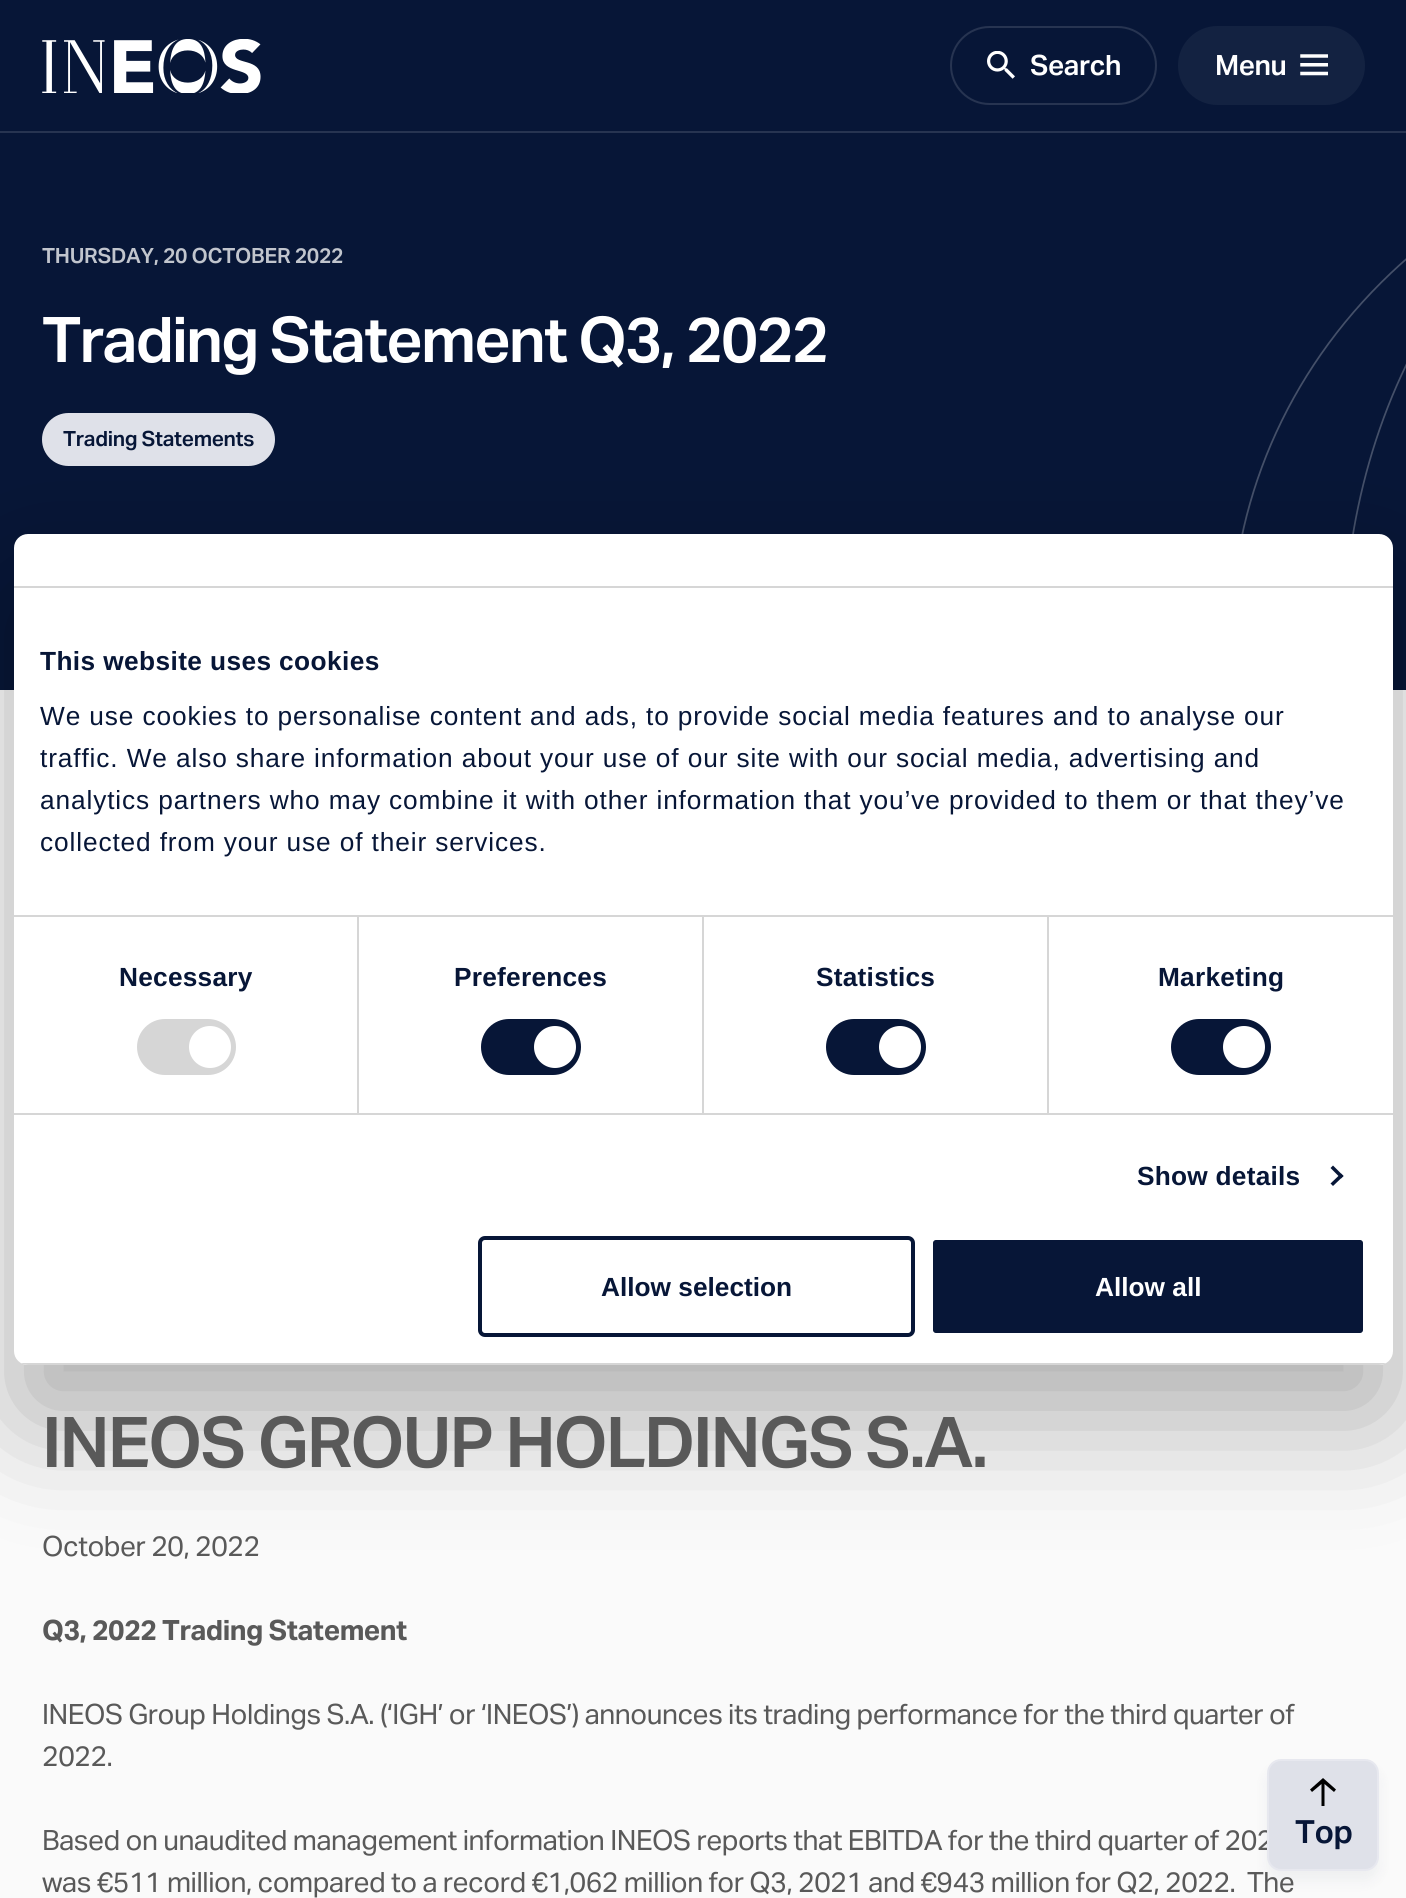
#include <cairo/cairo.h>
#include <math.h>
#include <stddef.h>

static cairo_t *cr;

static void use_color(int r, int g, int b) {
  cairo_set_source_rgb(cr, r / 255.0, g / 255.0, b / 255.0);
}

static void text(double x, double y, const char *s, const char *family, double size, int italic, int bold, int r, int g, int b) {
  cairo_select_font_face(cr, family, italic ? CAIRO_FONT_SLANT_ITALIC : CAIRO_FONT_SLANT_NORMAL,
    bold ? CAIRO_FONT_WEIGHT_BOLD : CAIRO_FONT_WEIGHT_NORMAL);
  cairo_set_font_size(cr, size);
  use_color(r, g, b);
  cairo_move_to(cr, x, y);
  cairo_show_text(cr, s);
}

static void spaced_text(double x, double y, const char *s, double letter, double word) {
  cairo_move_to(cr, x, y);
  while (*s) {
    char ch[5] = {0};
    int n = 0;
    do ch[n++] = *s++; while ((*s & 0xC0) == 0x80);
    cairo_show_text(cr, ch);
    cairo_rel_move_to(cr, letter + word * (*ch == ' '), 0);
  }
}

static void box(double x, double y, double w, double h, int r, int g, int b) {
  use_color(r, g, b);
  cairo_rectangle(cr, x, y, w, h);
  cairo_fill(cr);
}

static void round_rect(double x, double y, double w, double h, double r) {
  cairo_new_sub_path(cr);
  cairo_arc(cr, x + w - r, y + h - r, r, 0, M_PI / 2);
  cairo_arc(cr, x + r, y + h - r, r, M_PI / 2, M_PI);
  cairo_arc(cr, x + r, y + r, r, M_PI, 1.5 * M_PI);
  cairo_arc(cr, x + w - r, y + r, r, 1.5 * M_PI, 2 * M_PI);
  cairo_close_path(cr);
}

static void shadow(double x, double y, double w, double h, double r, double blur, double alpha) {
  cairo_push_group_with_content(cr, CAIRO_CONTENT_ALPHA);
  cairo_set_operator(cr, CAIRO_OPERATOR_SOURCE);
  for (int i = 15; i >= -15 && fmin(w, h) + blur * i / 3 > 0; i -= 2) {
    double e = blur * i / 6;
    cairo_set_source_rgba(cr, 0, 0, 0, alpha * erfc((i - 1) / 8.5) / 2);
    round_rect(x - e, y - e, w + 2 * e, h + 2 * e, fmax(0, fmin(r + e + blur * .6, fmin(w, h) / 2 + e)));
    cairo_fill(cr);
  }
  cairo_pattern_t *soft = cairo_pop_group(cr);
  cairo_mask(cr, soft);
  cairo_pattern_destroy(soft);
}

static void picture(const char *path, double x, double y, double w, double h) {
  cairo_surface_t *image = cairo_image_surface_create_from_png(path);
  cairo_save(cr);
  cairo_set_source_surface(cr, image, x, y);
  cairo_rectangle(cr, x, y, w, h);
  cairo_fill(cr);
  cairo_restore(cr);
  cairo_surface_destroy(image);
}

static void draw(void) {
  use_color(250, 250, 250);
  cairo_paint(cr);
  box(0, 0, 1406, 131, 7, 22, 55);
  box(0, 131, 1406, 2, 39, 52, 81);
  picture("img_01.png", 42, 39, 219, 54);
  round_rect(951, 27, 205, 77, 38.5);
  cairo_stroke(cr);
  picture("img_02.png", 987, 51, 28, 28);
  use_color(19, 34, 65);
  round_rect(1179, 27, 185, 77, 38.5);
  cairo_fill_preserve(cr);
  cairo_stroke(cr);
  picture("img_03.png", 1300, 54, 28, 22);
  box(0, 133, 1406, 557, 7, 22, 55);
  use_color(223, 225, 233);
  round_rect(42, 413, 233, 53, 26.5);
  cairo_fill(cr);
  picture("img_04.png", 1241, 258, 165, 276);
  use_color(0, 0, 0);
  shadow(14, 590, 1379, 831, 14, 59.5, 0.3);
  use_color(255, 255, 255);
  round_rect(14, 534, 1379, 831, 14);
  cairo_fill(cr);
  box(14, 586, 1379, 2, 214, 214, 214);
  box(14, 915, 1379, 2, 214, 214, 214);
  box(14, 1113, 1379, 2, 214, 214, 214);
  box(357, 917, 2, 196, 214, 214, 214);
  round_rect(137, 1019, 99, 56, 28);
  cairo_fill(cr);
  use_color(255, 255, 255);
  cairo_arc(cr, 210, 1047, 21, 0, 2 * M_PI);
  cairo_fill(cr);
  box(702, 917, 2, 196, 214, 214, 214);
  use_color(7, 22, 55);
  round_rect(481, 1019, 100, 56, 28);
  cairo_fill(cr);
  use_color(255, 255, 255);
  cairo_arc(cr, 555, 1047, 21, 0, 2 * M_PI);
  cairo_fill(cr);
  box(1047, 917, 2, 196, 214, 214, 214);
  use_color(7, 22, 55);
  round_rect(826, 1019, 100, 56, 28);
  cairo_fill(cr);
  use_color(255, 255, 255);
  cairo_arc(cr, 900, 1047, 21, 0, 2 * M_PI);
  cairo_fill(cr);
  use_color(7, 22, 55);
  round_rect(1171, 1019, 100, 56, 28);
  cairo_fill(cr);
  use_color(255, 255, 255);
  cairo_arc(cr, 1244, 1047, 21, 0, 2 * M_PI);
  cairo_fill(cr);
  use_color(7, 22, 55);
  cairo_new_path(cr);
  cairo_move_to(cr, 1333, 1165.5);
  cairo_line_to(cr, 1343.5, 1176);
  cairo_line_to(cr, 1341, 1178.5);
  cairo_line_to(cr, 1330.5, 1168);
  cairo_close_path(cr);
  cairo_fill(cr);
  cairo_new_path(cr);
  cairo_move_to(cr, 1341, 1173.5);
  cairo_line_to(cr, 1343.5, 1176);
  cairo_line_to(cr, 1333, 1186);
  cairo_line_to(cr, 1330.5, 1183.5);
  cairo_close_path(cr);
  cairo_fill(cr);
  cairo_save(cr);
  round_rect(14, 534, 1379, 831, 14);
  cairo_clip(cr);
  box(14, 1363, 1379, 2, 214, 214, 214);
  cairo_restore(cr);
  round_rect(480, 1238, 433, 97, 5);
  cairo_set_line_width(cr, 4);
  cairo_stroke(cr);
  round_rect(931, 1238, 434, 97, 5);
  cairo_fill_preserve(cr);
  use_color(255, 255, 255);
  cairo_stroke(cr);
  use_color(7, 22, 55);
  shadow(1267, 1769, 112, 112, 14, 7, 0.05);
  cairo_select_font_face(cr, "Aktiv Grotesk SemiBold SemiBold", CAIRO_FONT_SLANT_NORMAL, CAIRO_FONT_WEIGHT_NORMAL);
  cairo_set_font_size(cr, 28);
  use_color(255, 255, 255);
  spaced_text(1030, 75, "Search", -0.45, 0);
  spaced_text(1215, 75, "Menu", -0.45, 0);
  cairo_set_font_size(cr, 21);
  use_color(193, 197, 205);
  spaced_text(42, 263, "THURSDAY, 20 OCTOBER 2022", -0.3, 0);
  cairo_set_font_size(cr, 63);
  use_color(255, 255, 255);
  spaced_text(42, 362, "Trading Statement Q3, 2022", -1.9, 0);
  cairo_set_font_size(cr, 21);
  use_color(7, 22, 55);
  spaced_text(63, 446, "Trading Statements", -0.3, 0);
  cairo_set_font_size(cr, 70);
  use_color(89, 89, 89);
  spaced_text(42, 1467, "INEOS GROUP HOLDINGS S.A.", -2.1, 0);
  cairo_select_font_face(cr, "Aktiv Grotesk", CAIRO_FONT_SLANT_NORMAL, CAIRO_FONT_WEIGHT_NORMAL);
  cairo_set_font_size(cr, 28);
  spaced_text(42, 1556, "October 20, 2022", -0.45, 0);
  cairo_select_font_face(cr, "Aktiv Grotesk", CAIRO_FONT_SLANT_NORMAL, CAIRO_FONT_WEIGHT_BOLD);
  spaced_text(42, 1640, "Q3, 2022 Trading Statement", -0.45, 0);
  cairo_select_font_face(cr, "Aktiv Grotesk", CAIRO_FONT_SLANT_NORMAL, CAIRO_FONT_WEIGHT_NORMAL);
  spaced_text(42, 1724, "INEOS Group Holdings S.A. (‘IGH’ or ‘INEOS’) announces its trading performance for the third quarter of", -0.45, 0);
  spaced_text(42, 1766, "2022.", -0.45, 0);
  spaced_text(42, 1850, "Based on unaudited management information INEOS reports that EBITDA for the third quarter of 202", -0.45, 0);
  spaced_text(42, 1892, "was €511 million, compared to a record €1,062 million for Q3, 2021 and €943 million for Q2, 2022.  The", -0.45, 0);
  cairo_select_font_face(cr, "Liberation Sans", CAIRO_FONT_SLANT_NORMAL, CAIRO_FONT_WEIGHT_BOLD);
  cairo_set_font_size(cr, 26.25);
  use_color(7, 22, 55);
  spaced_text(40, 670, "This website uses cookies", 0.4, 0);
  cairo_select_font_face(cr, "Liberation Sans", CAIRO_FONT_SLANT_NORMAL, CAIRO_FONT_WEIGHT_NORMAL);
  spaced_text(40, 725, "We use cookies to personalise content and ads, to provide social media features and to analyse our", 0.88, 0);
  spaced_text(40, 767, "traffic. We also share information about your use of our site with our social media, advertising and", 0.88, 0);
  spaced_text(40, 809, "analytics partners who may combine it with other information that you’ve provided to them or that they’ve", 0.88, 0);
  spaced_text(40, 851, "collected from your use of their services.", 0.88, 0);
  cairo_select_font_face(cr, "Liberation Sans", CAIRO_FONT_SLANT_NORMAL, CAIRO_FONT_WEIGHT_BOLD);
  spaced_text(119, 986, "Necessary", 0.25, 0);
  spaced_text(454, 986, "Preferences", 0.25, 0);
  spaced_text(816, 986, "Statistics", 0.25, 0);
  spaced_text(1158, 986, "Marketing", 0.25, 0);
  spaced_text(1137, 1185, "Show details", 0.25, 0);
  text(601, 1296, "Allow selection", "Liberation Sans", 26.25, 0, 1, 7, 22, 55);
  text(1095, 1296, "Allow all", "Liberation Sans", 26.25, 0, 1, 255, 255, 255);
  use_color(223, 225, 233);
  round_rect(1268, 1760, 110, 110, 13);
  cairo_fill_preserve(cr);
  use_color(231, 232, 239);
  cairo_set_line_width(cr, 2);
  cairo_stroke(cr);
  use_color(0, 0, 0);
  cairo_new_path(cr);
  cairo_move_to(cr, 1310, 1789.5);
  cairo_line_to(cr, 1323, 1778);
  cairo_line_to(cr, 1336, 1789.5);
  cairo_line_to(cr, 1334, 1792);
  cairo_line_to(cr, 1324.5, 1784);
  cairo_line_to(cr, 1324.5, 1806);
  cairo_line_to(cr, 1321.5, 1806);
  cairo_line_to(cr, 1321.5, 1784);
  cairo_line_to(cr, 1312, 1792);
  cairo_close_path(cr);
  cairo_fill(cr);
  cairo_select_font_face(cr, "Aktiv Grotesk SemiBold SemiBold", CAIRO_FONT_SLANT_NORMAL, CAIRO_FONT_WEIGHT_NORMAL);
  cairo_set_font_size(cr, 32);
  use_color(7, 22, 55);
  spaced_text(1295, 1843, "Top", -0.5, 0);
}

int main(void) {
  cairo_surface_t *surface = cairo_image_surface_create(CAIRO_FORMAT_RGB24, 1406, 1898);
  cr = cairo_create(surface);
  cairo_font_options_t *options = cairo_font_options_create();
  cairo_font_options_set_hint_metrics(options, CAIRO_HINT_METRICS_OFF);
  cairo_font_options_set_hint_style(options, CAIRO_HINT_STYLE_NONE);
  cairo_set_font_options(cr, options);
  cairo_set_miter_limit(cr, 4);
  draw();
  cairo_surface_write_to_png(surface, "out.png");
  cairo_font_options_destroy(options);
  cairo_destroy(cr);
  cairo_surface_destroy(surface);
  return 0;
}
